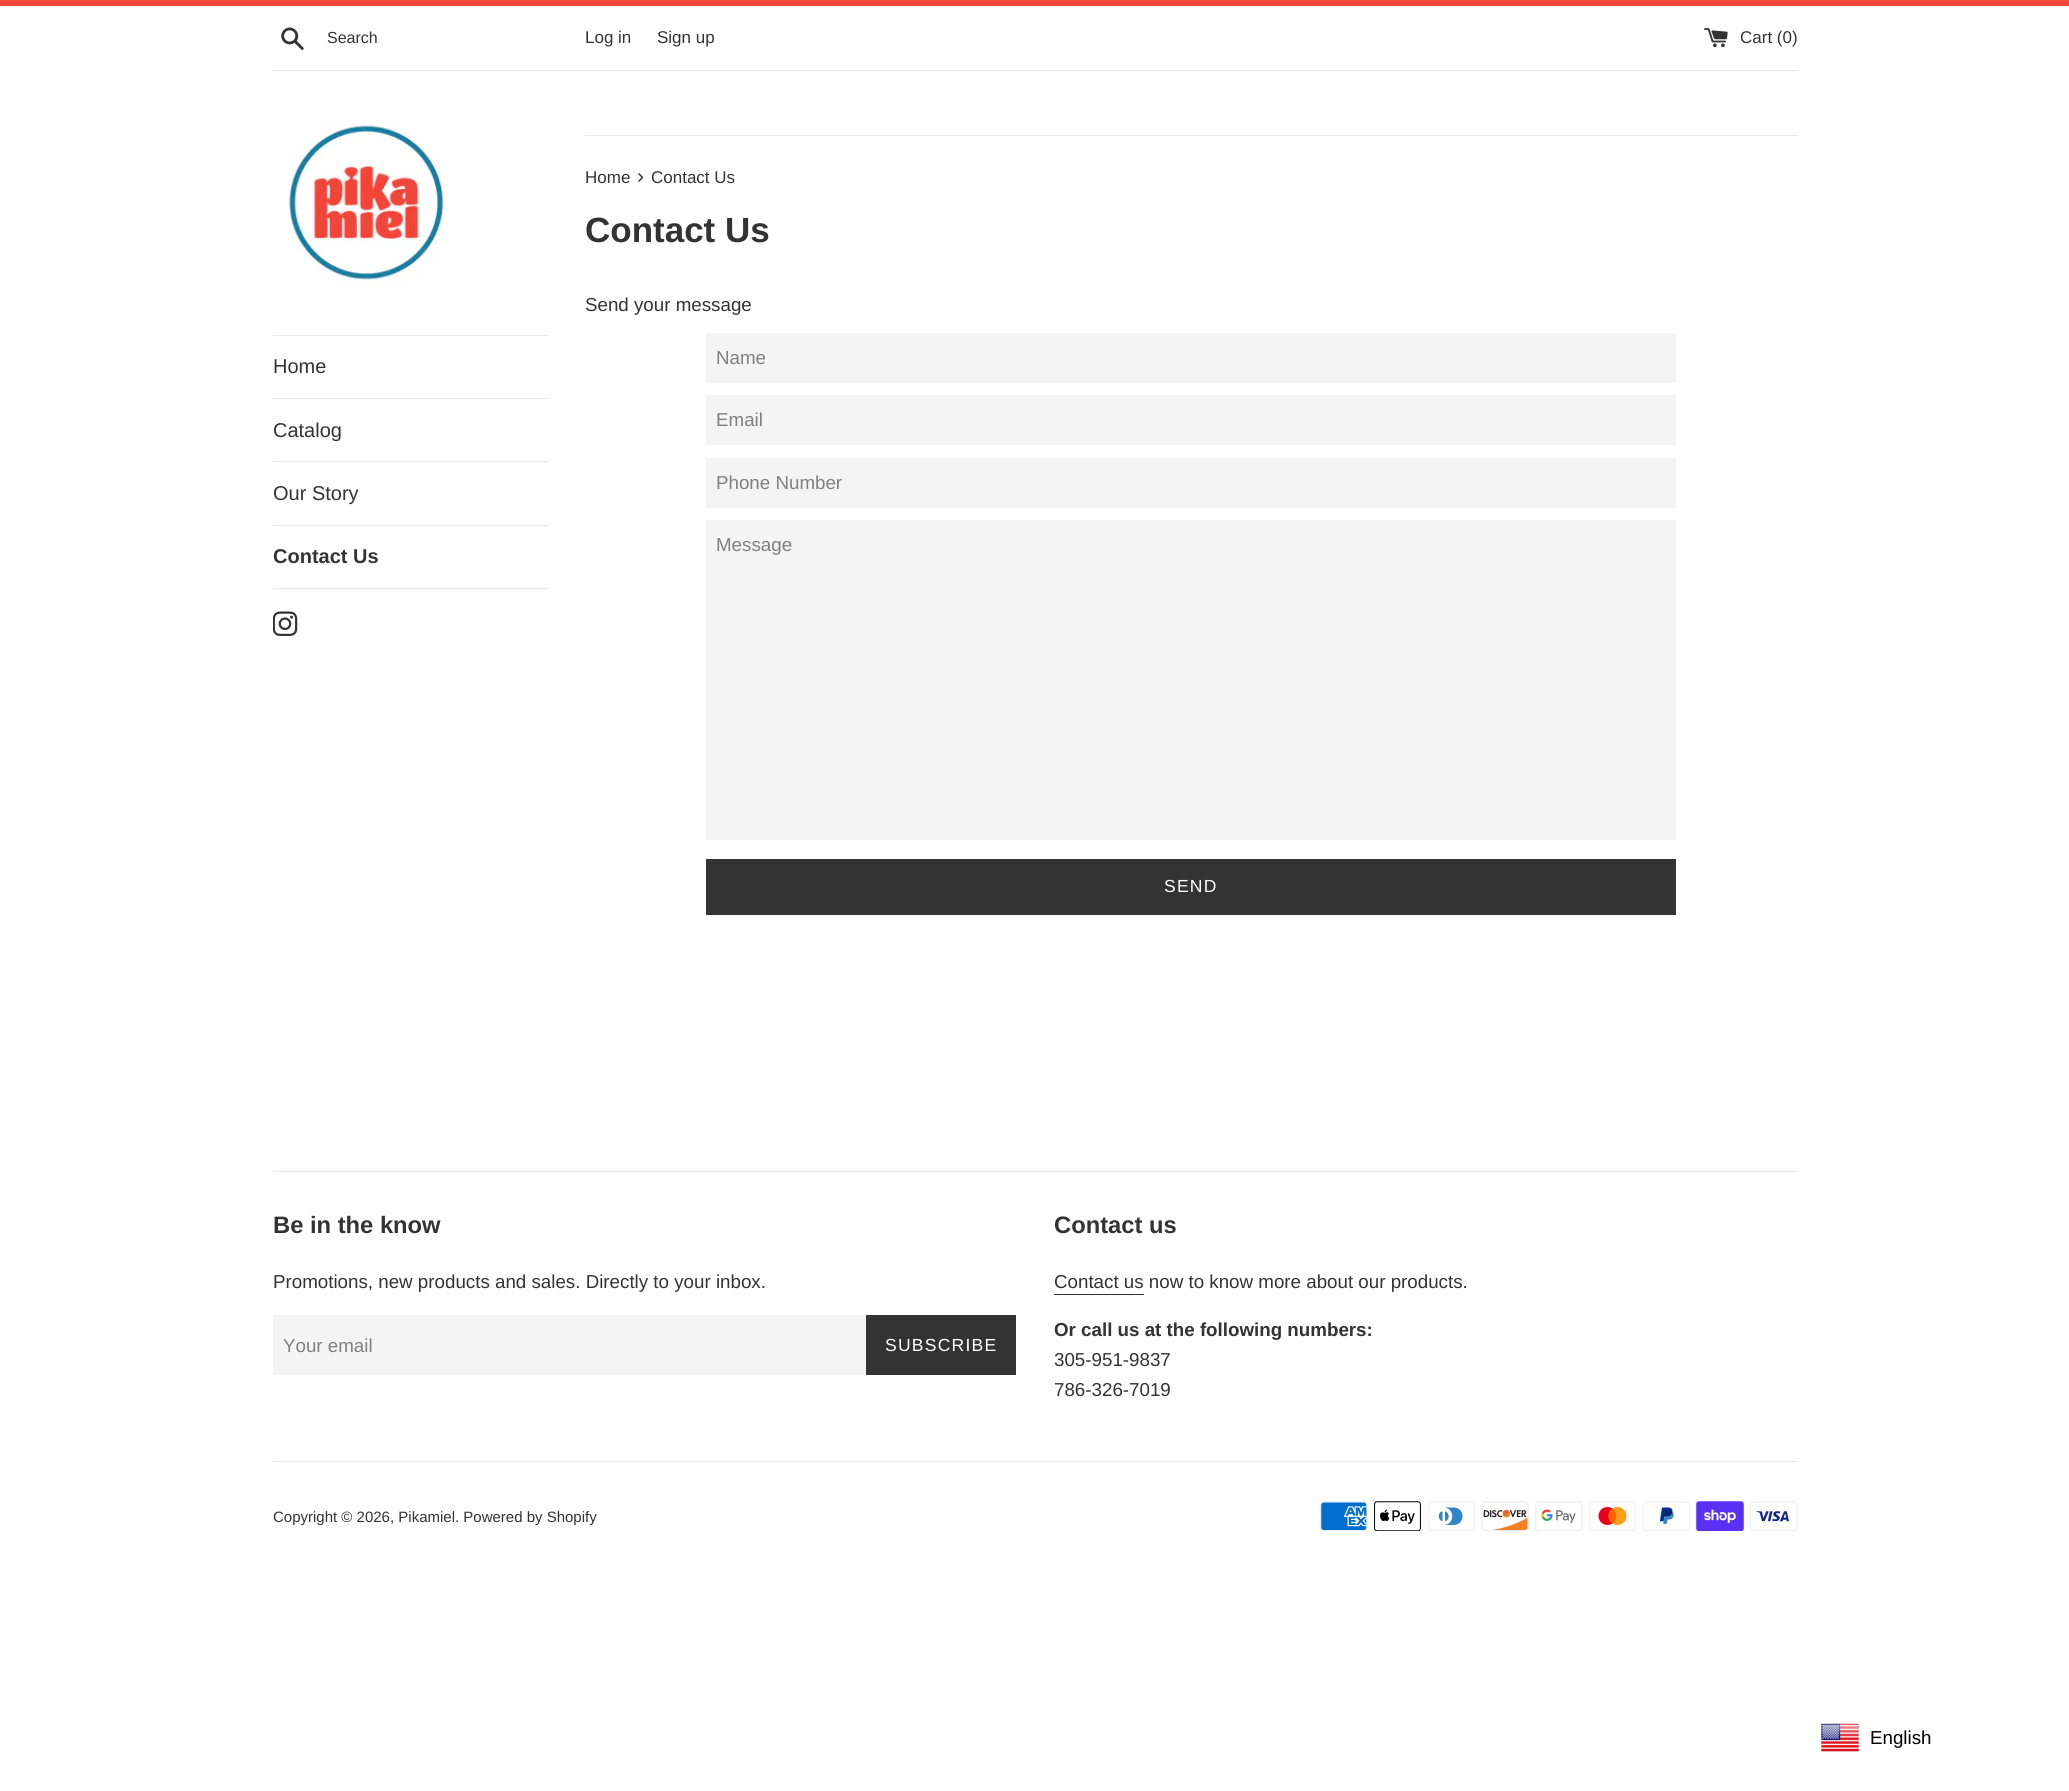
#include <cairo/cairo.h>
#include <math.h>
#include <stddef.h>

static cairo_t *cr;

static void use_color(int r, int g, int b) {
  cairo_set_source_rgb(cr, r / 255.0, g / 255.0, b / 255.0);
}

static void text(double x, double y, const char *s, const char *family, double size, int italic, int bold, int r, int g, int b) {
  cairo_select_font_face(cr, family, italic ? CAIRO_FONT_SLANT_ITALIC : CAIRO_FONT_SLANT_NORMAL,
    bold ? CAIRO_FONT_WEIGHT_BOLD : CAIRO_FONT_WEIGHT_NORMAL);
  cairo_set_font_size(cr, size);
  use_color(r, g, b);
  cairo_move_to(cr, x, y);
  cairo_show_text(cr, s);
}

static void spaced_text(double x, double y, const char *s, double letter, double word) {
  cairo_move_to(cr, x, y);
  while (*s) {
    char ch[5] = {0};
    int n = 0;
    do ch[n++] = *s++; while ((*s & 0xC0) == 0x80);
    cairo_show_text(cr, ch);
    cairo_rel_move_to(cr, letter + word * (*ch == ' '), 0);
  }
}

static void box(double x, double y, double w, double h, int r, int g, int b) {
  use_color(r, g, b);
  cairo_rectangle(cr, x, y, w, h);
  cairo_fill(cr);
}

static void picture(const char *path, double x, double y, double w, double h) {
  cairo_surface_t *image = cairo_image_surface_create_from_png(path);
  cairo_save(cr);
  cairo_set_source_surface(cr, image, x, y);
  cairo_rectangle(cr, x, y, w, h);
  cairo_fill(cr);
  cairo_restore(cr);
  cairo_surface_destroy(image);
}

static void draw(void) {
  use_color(255, 255, 255);
  cairo_paint(cr);
  box(0, 0, 2069, 6, 241, 70, 57);
  picture("img_01.png", 281, 27, 23, 23);
  picture("img_02.png", 1704, 28, 24, 20);
  box(273, 70, 1525, 1, 232, 232, 232);
  picture("img_03.png", 288, 125, 160, 159);
  box(273, 335, 275, 1, 232, 232, 232);
  box(273, 398, 275, 1, 232, 232, 232);
  box(273, 461, 275, 1, 232, 232, 232);
  box(273, 525, 275, 1, 232, 232, 232);
  box(273, 588, 275, 1, 232, 232, 232);
  picture("img_04.png", 273, 611, 25, 25);
  box(585, 135, 1213, 1, 232, 232, 232);
  box(706, 333, 970, 50, 244, 244, 244);
  box(706, 395, 970, 50, 244, 244, 244);
  box(706, 458, 970, 50, 244, 244, 244);
  box(706, 520, 970, 320, 244, 244, 244);
  box(706, 859, 970, 56, 51, 51, 51);
  box(273, 1171, 1525, 1, 232, 232, 232);
  box(273, 1315, 593, 60, 244, 244, 244);
  box(866, 1315, 150, 60, 51, 51, 51);
  box(1054, 1294, 90, 1, 51, 51, 51);
  box(273, 1461, 1525, 1, 232, 232, 232);
  picture("img_05.png", 1320, 1501, 48, 30);
  picture("img_06.png", 1374, 1501, 47, 30);
  picture("img_07.png", 1428, 1501, 47, 30);
  picture("img_08.png", 1481, 1501, 48, 30);
  picture("img_09.png", 1535, 1501, 48, 30);
  picture("img_10.png", 1589, 1501, 47, 30);
  picture("img_11.png", 1643, 1501, 47, 30);
  picture("img_12.png", 1696, 1501, 48, 30);
  picture("img_13.png", 1750, 1501, 48, 30);
  picture("img_14.png", 1821, 1723, 38, 29);
  text(327, 43, "Search", "Liberation Sans", 16, 0, 0, 51, 51, 51);
  text(585, 43, "Log in", "Liberation Sans", 17, 0, 0, 51, 51, 51);
  text(657, 43, "Sign up", "Liberation Sans", 17, 0, 0, 51, 51, 51);
  text(1740, 43, "Cart (0)", "Liberation Sans", 17, 0, 0, 51, 51, 51);
  text(273, 373, "Home", "Liberation Sans", 20, 0, 0, 51, 51, 51);
  text(273, 437, "Catalog", "Liberation Sans", 20, 0, 0, 51, 51, 51);
  text(273, 500, "Our Story", "Liberation Sans", 20, 0, 0, 51, 51, 51);
  text(273, 563, "Contact Us", "Liberation Sans", 20, 0, 1, 51, 51, 51);
  text(585, 183, "Home", "Liberation Sans", 17, 0, 0, 51, 51, 51);
  text(637, 183, "›", "Liberation Sans", 21, 0, 0, 51, 51, 51);
  text(651, 183, "Contact Us", "Liberation Sans", 17, 0, 0, 51, 51, 51);
  text(585, 242, "Contact Us", "Liberation Sans", 35, 0, 1, 51, 51, 51);
  text(585, 311, "Send your message", "Liberation Sans", 18.75, 0, 0, 51, 51, 51);
  text(716, 364, "Name", "Liberation Sans", 18.75, 0, 0, 128, 128, 128);
  text(716, 426, "Email", "Liberation Sans", 18.75, 0, 0, 128, 128, 128);
  text(716, 489, "Phone Number", "Liberation Sans", 18.75, 0, 0, 128, 128, 128);
  text(716, 551, "Message", "Liberation Sans", 18.75, 0, 0, 128, 128, 128);
  cairo_set_font_size(cr, 17.5);
  use_color(255, 255, 255);
  spaced_text(1164, 892, "SEND", 1.25, 0);
  text(273, 1233, "Be in the know", "Liberation Sans", 23.75, 0, 1, 51, 51, 51);
  text(273, 1288, "Promotions, new products and sales. Directly to your inbox.", "Liberation Sans", 18.75, 0, 0, 51, 51, 51);
  text(283, 1352, "Your email", "Liberation Sans", 18.75, 0, 0, 128, 128, 128);
  cairo_set_font_size(cr, 17.5);
  use_color(255, 255, 255);
  spaced_text(885, 1351, "SUBSCRIBE", 1.25, 0);
  text(1054, 1233, "Contact us", "Liberation Sans", 23.75, 0, 1, 51, 51, 51);
  text(1054, 1288, "Contact us now to know more about our products.", "Liberation Sans", 18.75, 0, 0, 51, 51, 51);
  text(1054, 1336, "Or call us at the following numbers:", "Liberation Sans", 18.75, 0, 1, 51, 51, 51);
  text(1054, 1366, "305-951-9837", "Liberation Sans", 18.75, 0, 0, 51, 51, 51);
  text(1054, 1396, "786-326-7019", "Liberation Sans", 18.75, 0, 0, 51, 51, 51);
  text(273, 1522, "Copyright © 2026, Pikamiel. Powered by Shopify", "Liberation Sans", 15, 0, 0, 51, 51, 51);
  text(1870, 1744, "English", "Liberation Sans", 18.75, 0, 0, 0, 0, 0);
}

int main(void) {
  cairo_surface_t *surface = cairo_image_surface_create(CAIRO_FORMAT_RGB24, 2069, 1791);
  cr = cairo_create(surface);
  cairo_font_options_t *options = cairo_font_options_create();
  cairo_font_options_set_hint_metrics(options, CAIRO_HINT_METRICS_OFF);
  cairo_font_options_set_hint_style(options, CAIRO_HINT_STYLE_NONE);
  cairo_set_font_options(cr, options);
  cairo_set_miter_limit(cr, 4);
  draw();
  cairo_surface_write_to_png(surface, "out.png");
  cairo_font_options_destroy(options);
  cairo_destroy(cr);
  cairo_surface_destroy(surface);
  return 0;
}
